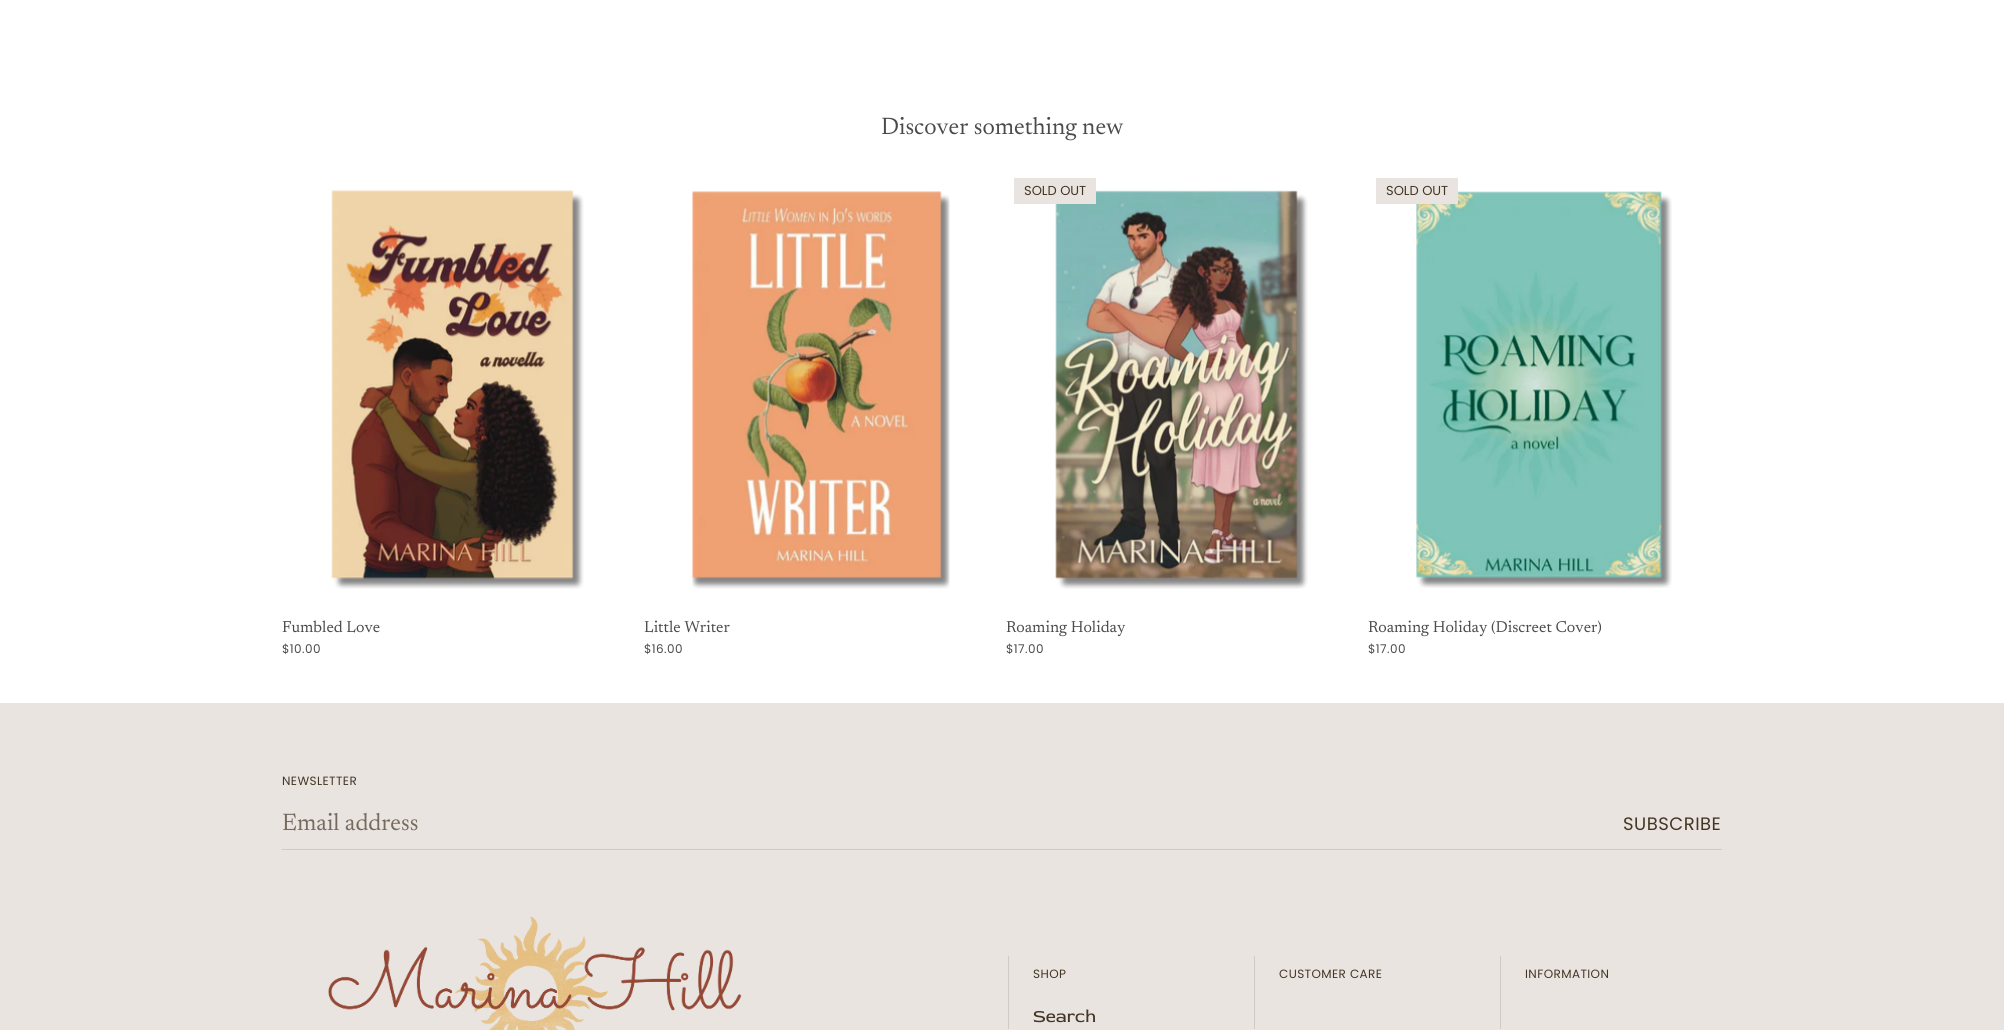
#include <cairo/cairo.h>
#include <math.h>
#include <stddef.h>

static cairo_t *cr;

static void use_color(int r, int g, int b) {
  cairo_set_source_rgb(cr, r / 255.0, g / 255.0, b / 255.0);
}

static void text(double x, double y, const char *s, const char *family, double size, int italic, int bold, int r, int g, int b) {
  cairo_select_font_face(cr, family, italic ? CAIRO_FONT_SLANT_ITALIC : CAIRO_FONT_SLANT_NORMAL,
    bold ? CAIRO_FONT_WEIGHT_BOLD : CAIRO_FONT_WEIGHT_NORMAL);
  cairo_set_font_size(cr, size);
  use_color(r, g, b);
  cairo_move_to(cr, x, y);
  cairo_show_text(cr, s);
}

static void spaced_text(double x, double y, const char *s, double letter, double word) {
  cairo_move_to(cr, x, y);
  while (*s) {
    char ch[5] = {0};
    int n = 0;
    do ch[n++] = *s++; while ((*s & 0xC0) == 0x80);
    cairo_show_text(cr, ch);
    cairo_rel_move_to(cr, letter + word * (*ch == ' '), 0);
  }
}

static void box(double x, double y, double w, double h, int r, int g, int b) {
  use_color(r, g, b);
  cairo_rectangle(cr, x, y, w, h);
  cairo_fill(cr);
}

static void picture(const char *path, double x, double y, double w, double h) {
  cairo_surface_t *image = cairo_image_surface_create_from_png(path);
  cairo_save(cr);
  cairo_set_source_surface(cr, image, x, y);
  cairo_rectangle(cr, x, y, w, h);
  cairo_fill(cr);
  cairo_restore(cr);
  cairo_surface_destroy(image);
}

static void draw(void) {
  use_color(255, 255, 255);
  cairo_paint(cr);
  picture("img_01.png", 331, 190, 253, 399);
  picture("img_02.png", 692, 191, 258, 398);
  picture("img_03.png", 1055, 190, 253, 399);
  box(1014, 178, 82, 26, 233, 228, 224);
  picture("img_04.png", 1416, 191, 256, 397);
  box(1376, 178, 82, 26, 233, 228, 224);
  box(0, 703, 2004, 327, 233, 228, 224);
  box(282, 849, 1440, 1, 208, 202, 196);
  picture("img_05.png", 328, 916, 414, 114);
  cairo_new_path(cr);
  cairo_move_to(cr, 1009, 956);
  cairo_line_to(cr, 1009, 1029);
  cairo_line_to(cr, 1008, 1028);
  cairo_line_to(cr, 1008, 956);
  cairo_close_path(cr);
  cairo_fill(cr);
  use_color(197, 191, 184);
  cairo_new_path(cr);
  cairo_move_to(cr, 1009, 1029);
  cairo_line_to(cr, 1008, 1029);
  cairo_line_to(cr, 1008, 1028);
  cairo_close_path(cr);
  cairo_fill(cr);
  use_color(208, 202, 196);
  cairo_new_path(cr);
  cairo_move_to(cr, 1255, 956);
  cairo_line_to(cr, 1255, 1029);
  cairo_line_to(cr, 1254, 1028);
  cairo_line_to(cr, 1254, 956);
  cairo_close_path(cr);
  cairo_fill(cr);
  use_color(197, 191, 184);
  cairo_new_path(cr);
  cairo_move_to(cr, 1255, 1029);
  cairo_line_to(cr, 1254, 1029);
  cairo_line_to(cr, 1254, 1028);
  cairo_close_path(cr);
  cairo_fill(cr);
  use_color(208, 202, 196);
  cairo_new_path(cr);
  cairo_move_to(cr, 1501, 956);
  cairo_line_to(cr, 1501, 1029);
  cairo_line_to(cr, 1500, 1028);
  cairo_line_to(cr, 1500, 956);
  cairo_close_path(cr);
  cairo_fill(cr);
  use_color(197, 191, 184);
  cairo_new_path(cr);
  cairo_move_to(cr, 1501, 1029);
  cairo_line_to(cr, 1500, 1029);
  cairo_line_to(cr, 1500, 1028);
  cairo_close_path(cr);
  cairo_fill(cr);
  text(881, 134, "Discover something new", "Newsreader", 24, 0, 0, 74, 74, 74);
  text(282, 632, "Fumbled Love", "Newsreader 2", 16, 0, 0, 74, 74, 74);
  cairo_select_font_face(cr, "Poppins", CAIRO_FONT_SLANT_NORMAL, CAIRO_FONT_WEIGHT_NORMAL);
  cairo_set_font_size(cr, 12);
  spaced_text(282, 653, "$10.00", 0.4, 0);
  text(644, 632, "Little Writer", "Newsreader 2", 16, 0, 0, 74, 74, 74);
  cairo_select_font_face(cr, "Poppins", CAIRO_FONT_SLANT_NORMAL, CAIRO_FONT_WEIGHT_NORMAL);
  cairo_set_font_size(cr, 12);
  spaced_text(644, 653, "$16.00", 0.4, 0);
  text(1024, 195, "SOLD OUT", "Poppins", 13, 0, 0, 67, 54, 37);
  text(1006, 632, "Roaming Holiday", "Newsreader 2", 16, 0, 0, 74, 74, 74);
  cairo_select_font_face(cr, "Poppins", CAIRO_FONT_SLANT_NORMAL, CAIRO_FONT_WEIGHT_NORMAL);
  cairo_set_font_size(cr, 12);
  spaced_text(1006, 653, "$17.00", 0.4, 0);
  text(1386, 195, "SOLD OUT", "Poppins", 13, 0, 0, 67, 54, 37);
  text(1368, 632, "Roaming Holiday (Discreet Cover)", "Newsreader 2", 16, 0, 0, 74, 74, 74);
  cairo_select_font_face(cr, "Poppins", CAIRO_FONT_SLANT_NORMAL, CAIRO_FONT_WEIGHT_NORMAL);
  cairo_set_font_size(cr, 12);
  spaced_text(1368, 653, "$17.00", 0.4, 0);
  use_color(67, 54, 37);
  spaced_text(282, 785, "NEWSLETTER", 0.4, 0);
  text(282, 830, "Email address", "Newsreader", 24, 0, 0, 117, 106, 93);
  cairo_select_font_face(cr, "Poppins", CAIRO_FONT_SLANT_NORMAL, CAIRO_FONT_WEIGHT_NORMAL);
  cairo_set_font_size(cr, 18);
  use_color(67, 54, 37);
  spaced_text(1623, 830, "SUBSCRIBE", 0.5, 0);
  cairo_set_font_size(cr, 12);
  spaced_text(1033, 978, "SHOP", 0.4, 0);
  text(1033, 1022, "Search", "Red Rose", 18, 0, 0, 67, 54, 37);
  cairo_select_font_face(cr, "Poppins", CAIRO_FONT_SLANT_NORMAL, CAIRO_FONT_WEIGHT_NORMAL);
  cairo_set_font_size(cr, 12);
  spaced_text(1279, 978, "CUSTOMER CARE", 0.4, 0);
  spaced_text(1525, 978, "INFORMATION", 0.4, 0);
}

int main(void) {
  cairo_surface_t *surface = cairo_image_surface_create(CAIRO_FORMAT_RGB24, 2004, 1030);
  cr = cairo_create(surface);
  cairo_font_options_t *options = cairo_font_options_create();
  cairo_font_options_set_hint_metrics(options, CAIRO_HINT_METRICS_OFF);
  cairo_font_options_set_hint_style(options, CAIRO_HINT_STYLE_NONE);
  cairo_set_font_options(cr, options);
  cairo_set_miter_limit(cr, 4);
  draw();
  cairo_surface_write_to_png(surface, "out.png");
  cairo_font_options_destroy(options);
  cairo_destroy(cr);
  cairo_surface_destroy(surface);
  return 0;
}
